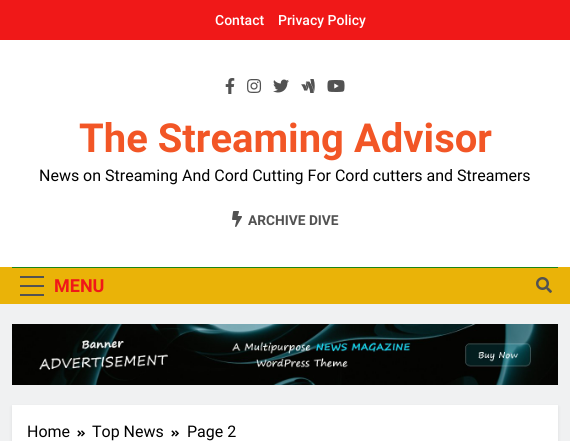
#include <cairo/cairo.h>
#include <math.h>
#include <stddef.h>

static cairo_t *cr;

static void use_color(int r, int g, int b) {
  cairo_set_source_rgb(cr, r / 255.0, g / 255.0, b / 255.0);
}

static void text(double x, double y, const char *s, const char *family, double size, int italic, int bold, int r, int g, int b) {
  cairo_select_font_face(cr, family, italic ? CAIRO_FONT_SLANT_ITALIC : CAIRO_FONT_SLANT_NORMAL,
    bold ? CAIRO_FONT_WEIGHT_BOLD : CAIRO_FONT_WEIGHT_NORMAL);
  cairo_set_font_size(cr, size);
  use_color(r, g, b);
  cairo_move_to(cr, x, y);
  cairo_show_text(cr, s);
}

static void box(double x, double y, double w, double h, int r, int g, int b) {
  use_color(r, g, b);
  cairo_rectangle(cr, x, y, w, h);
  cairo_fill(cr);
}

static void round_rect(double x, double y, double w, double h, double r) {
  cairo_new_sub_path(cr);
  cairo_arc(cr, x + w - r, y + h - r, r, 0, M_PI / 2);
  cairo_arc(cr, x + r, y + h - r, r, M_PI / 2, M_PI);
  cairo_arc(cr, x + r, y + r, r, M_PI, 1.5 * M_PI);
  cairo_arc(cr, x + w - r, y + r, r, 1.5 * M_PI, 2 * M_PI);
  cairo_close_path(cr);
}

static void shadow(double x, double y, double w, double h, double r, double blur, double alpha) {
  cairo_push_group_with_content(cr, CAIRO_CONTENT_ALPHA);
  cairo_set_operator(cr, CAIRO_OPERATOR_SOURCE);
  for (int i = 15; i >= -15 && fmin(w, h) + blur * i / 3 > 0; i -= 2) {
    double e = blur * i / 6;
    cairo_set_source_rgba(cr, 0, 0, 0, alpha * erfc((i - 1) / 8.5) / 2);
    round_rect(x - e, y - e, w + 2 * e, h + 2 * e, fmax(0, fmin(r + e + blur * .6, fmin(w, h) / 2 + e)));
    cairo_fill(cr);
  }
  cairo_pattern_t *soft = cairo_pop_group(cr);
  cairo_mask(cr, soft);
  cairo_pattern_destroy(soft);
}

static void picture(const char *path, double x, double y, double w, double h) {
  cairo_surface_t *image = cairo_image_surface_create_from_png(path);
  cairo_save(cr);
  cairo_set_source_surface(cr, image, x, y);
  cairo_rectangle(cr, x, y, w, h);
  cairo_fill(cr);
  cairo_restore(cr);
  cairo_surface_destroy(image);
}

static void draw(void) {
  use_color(240, 241, 242);
  cairo_paint(cr);
  box(0, 0, 570, 40, 240, 24, 24);
  box(0, 40, 570, 227, 255, 255, 255);
  picture("img_01.png", 225, 78, 10, 16);
  picture("img_02.png", 247, 79, 15, 14);
  picture("img_03.png", 273, 79, 16, 14);
  picture("img_04.png", 301, 79, 14, 14);
  picture("img_05.png", 327, 80, 18, 12);
  picture("img_06.png", 232, 211, 10, 16);
  box(0, 267, 570, 37, 234, 179, 8);
  box(12, 267, 546, 1, 27, 132, 21);
  box(20, 276, 24, 2, 82, 82, 82);
  box(20, 285, 24, 2, 82, 82, 82);
  box(20, 294, 24, 2, 82, 82, 82);
  picture("img_07.png", 536, 277, 16, 16);
  picture("img_08.png", 12, 324, 546, 61);
  use_color(0, 0, 0);
  shadow(12, 407, 546, 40, 0, 2, 0.08);
  box(12, 405, 546, 36, 255, 255, 255);
  picture("img_09.png", 77, 430, 8, 7);
  picture("img_09.png", 171, 430, 8, 7);
  text(215, 25, "Contact", "Roboto Medium", 14, 0, 0, 255, 255, 255);
  text(278, 25, "Privacy Policy", "Roboto Medium", 14, 0, 0, 255, 255, 255);
  text(79, 152, "The Streaming Advisor", "Roboto", 40, 0, 1, 242, 86, 38);
  text(39, 181, "News on Streaming And Cord Cutting For Cord cutters and Streamers", "Roboto", 16, 0, 0, 0, 0, 0);
  text(248, 225, "ARCHIVE DIVE", "Roboto", 13.75, 0, 1, 82, 82, 82);
  text(54, 292, "MENU", "Roboto", 18, 0, 1, 240, 24, 24);
  text(27, 437, "Home", "Roboto", 16, 0, 0, 0, 0, 0);
  text(92, 437, "Top News", "Roboto", 16, 0, 0, 0, 0, 0);
  text(187, 437, "Page 2", "Roboto", 16, 0, 0, 0, 0, 0);
}

int main(void) {
  cairo_surface_t *surface = cairo_image_surface_create(CAIRO_FORMAT_RGB24, 570, 441);
  cr = cairo_create(surface);
  cairo_font_options_t *options = cairo_font_options_create();
  cairo_font_options_set_hint_metrics(options, CAIRO_HINT_METRICS_OFF);
  cairo_font_options_set_hint_style(options, CAIRO_HINT_STYLE_NONE);
  cairo_set_font_options(cr, options);
  cairo_set_miter_limit(cr, 4);
  draw();
  cairo_surface_write_to_png(surface, "out.png");
  cairo_font_options_destroy(options);
  cairo_destroy(cr);
  cairo_surface_destroy(surface);
  return 0;
}
